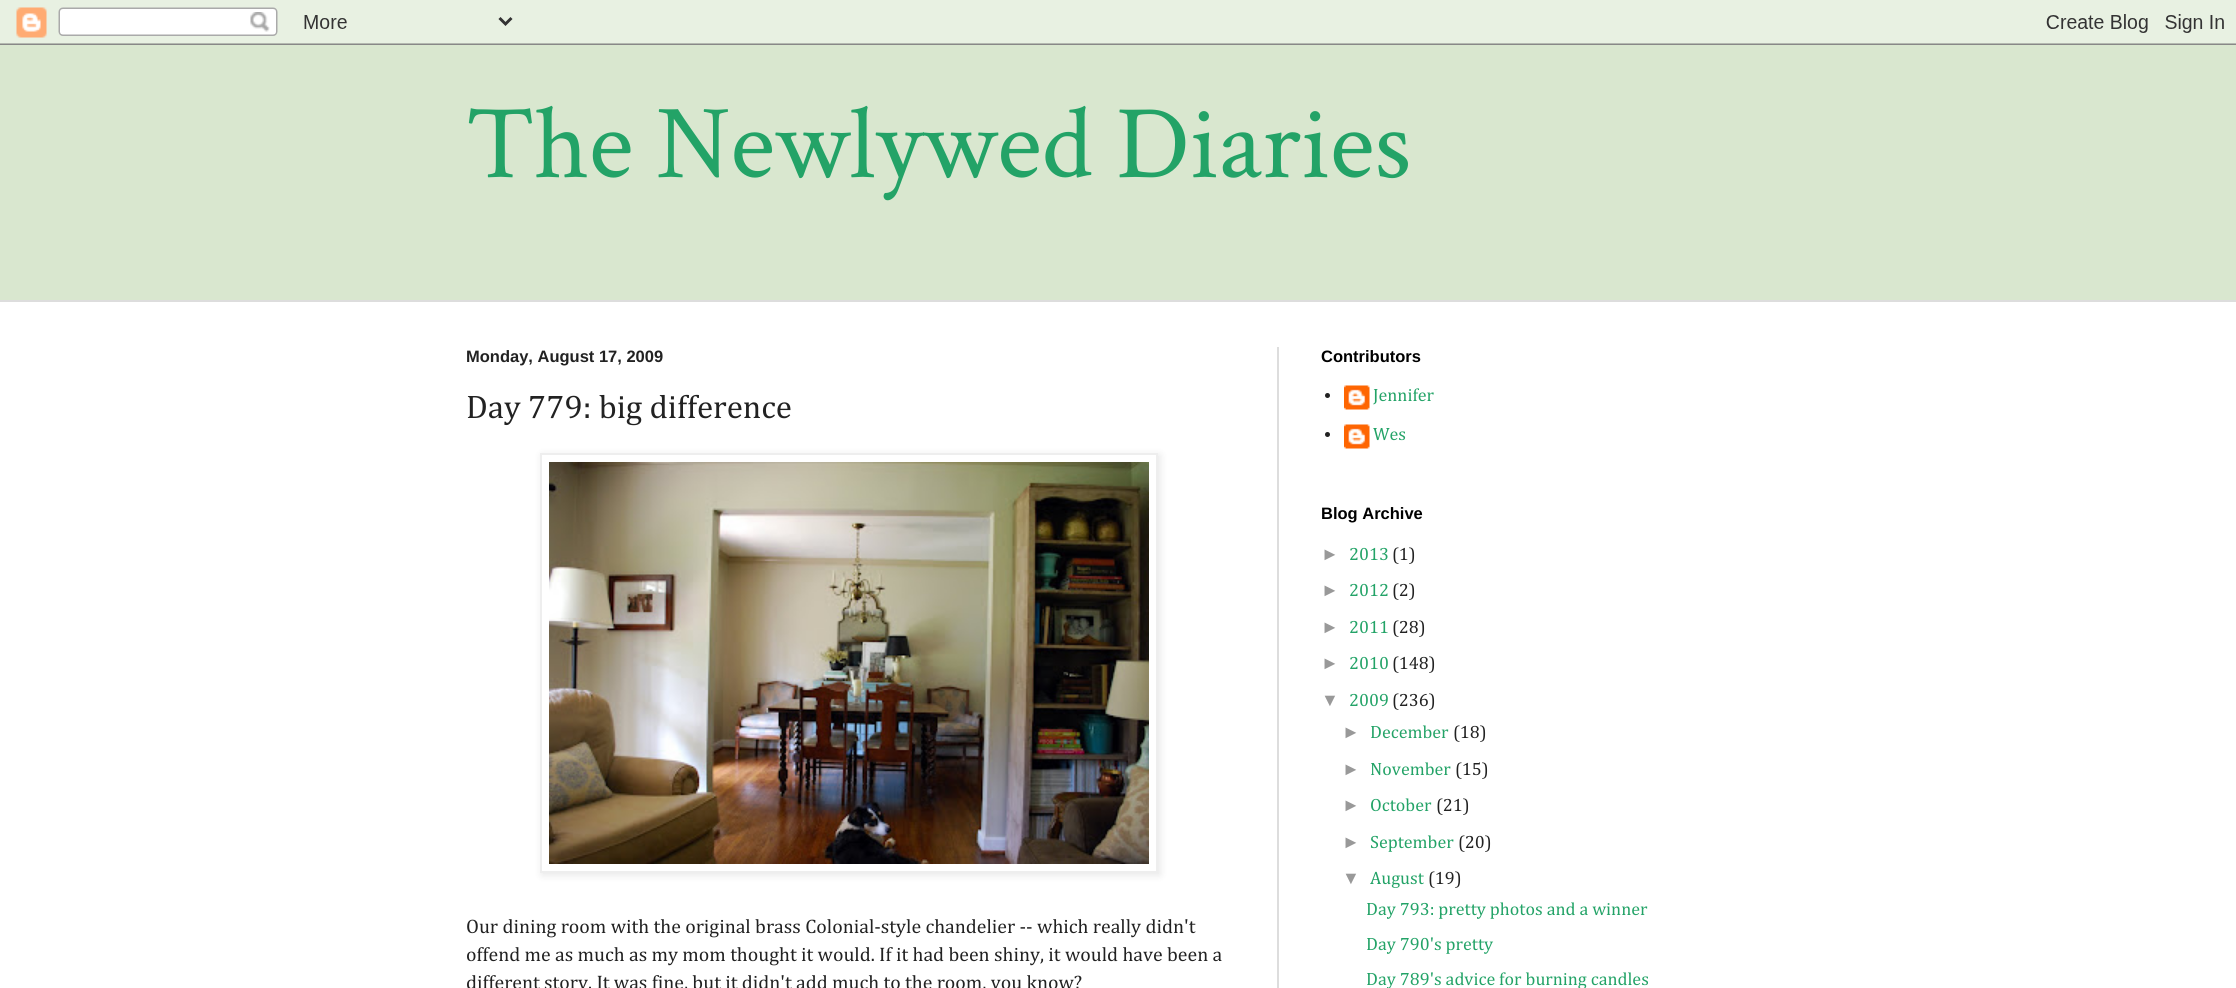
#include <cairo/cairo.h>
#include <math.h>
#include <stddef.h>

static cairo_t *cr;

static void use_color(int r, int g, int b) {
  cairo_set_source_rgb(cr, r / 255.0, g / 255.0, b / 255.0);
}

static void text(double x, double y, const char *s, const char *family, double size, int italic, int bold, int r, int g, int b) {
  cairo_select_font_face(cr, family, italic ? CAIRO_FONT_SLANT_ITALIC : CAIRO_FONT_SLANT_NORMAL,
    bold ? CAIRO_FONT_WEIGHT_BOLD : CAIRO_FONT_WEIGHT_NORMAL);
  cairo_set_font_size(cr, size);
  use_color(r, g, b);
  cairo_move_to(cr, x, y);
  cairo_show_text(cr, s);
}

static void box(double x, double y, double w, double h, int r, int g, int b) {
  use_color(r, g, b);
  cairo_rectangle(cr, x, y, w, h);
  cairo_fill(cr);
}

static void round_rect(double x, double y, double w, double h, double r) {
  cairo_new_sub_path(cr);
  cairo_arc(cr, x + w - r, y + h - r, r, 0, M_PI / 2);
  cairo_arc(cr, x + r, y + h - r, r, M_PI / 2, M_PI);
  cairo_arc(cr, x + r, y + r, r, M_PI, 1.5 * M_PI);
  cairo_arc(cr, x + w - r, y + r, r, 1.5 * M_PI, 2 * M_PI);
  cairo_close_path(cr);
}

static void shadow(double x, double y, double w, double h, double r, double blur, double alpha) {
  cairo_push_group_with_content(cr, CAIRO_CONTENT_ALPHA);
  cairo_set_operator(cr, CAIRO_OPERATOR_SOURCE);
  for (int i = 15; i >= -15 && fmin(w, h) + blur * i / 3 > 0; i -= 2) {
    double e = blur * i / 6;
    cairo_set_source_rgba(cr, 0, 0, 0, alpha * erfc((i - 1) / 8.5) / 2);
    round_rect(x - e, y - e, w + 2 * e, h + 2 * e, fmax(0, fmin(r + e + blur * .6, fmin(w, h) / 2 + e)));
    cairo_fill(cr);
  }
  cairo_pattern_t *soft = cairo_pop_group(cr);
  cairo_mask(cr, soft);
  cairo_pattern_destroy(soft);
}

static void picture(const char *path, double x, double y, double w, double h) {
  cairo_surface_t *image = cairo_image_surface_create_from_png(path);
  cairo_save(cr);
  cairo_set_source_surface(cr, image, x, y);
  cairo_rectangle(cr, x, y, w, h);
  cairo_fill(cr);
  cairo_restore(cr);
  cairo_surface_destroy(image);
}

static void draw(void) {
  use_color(217, 231, 207);
  cairo_paint(cr);
  picture("img_01.png", 0, 0, 2236, 45);
  box(0, 302, 2236, 686, 255, 255, 255);
  box(0, 300, 2236, 2, 221, 221, 221);
  box(1277, 347, 2, 641, 221, 221, 221);
  cairo_save(cr);
  cairo_set_fill_rule(cr, CAIRO_FILL_RULE_EVEN_ODD);
  cairo_new_path(cr);
  cairo_move_to(cr, 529, 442);
  cairo_line_to(cr, 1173, 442);
  cairo_line_to(cr, 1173, 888);
  cairo_line_to(cr, 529, 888);
  cairo_close_path(cr);
  cairo_move_to(cr, 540, 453);
  cairo_line_to(cr, 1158, 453);
  cairo_line_to(cr, 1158, 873);
  cairo_line_to(cr, 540, 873);
  cairo_close_path(cr);
  cairo_clip(cr);
  use_color(0, 0, 0);
  shadow(542, 455, 618, 420, 0, 4, 0.1);
  cairo_restore(cr);
  cairo_rectangle(cr, 541, 454, 616, 418);
  use_color(238, 238, 238);
  cairo_stroke(cr);
  picture("img_02.png", 549, 462, 600, 402);
  use_color(34, 34, 34);
  cairo_arc(cr, 1327.5, 395.5, 2.5, 0, 2 * M_PI);
  cairo_fill(cr);
  picture("img_03.png", 1344, 385, 26, 25);
  cairo_arc(cr, 1327.5, 434.5, 2.5, 0, 2 * M_PI);
  cairo_fill(cr);
  picture("img_03.png", 1344, 424, 26, 25);
  text(466, 177, "The Newlywed Diaries", "Crimson Text", 105, 0, 0, 35, 163, 103);
  text(466, 362, "Monday, August 17, 2009", "Liberation Sans", 16.5, 0, 1, 34, 34, 34);
  text(466, 418, "Day 779: big difference", "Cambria", 33, 0, 0, 34, 34, 34);
  text(466, 933, "Our dining room with the original brass Colonial-style chandelier -- which really didn't", "Cambria", 19.8, 0, 0, 34, 34, 34);
  text(466, 961, "offend me as much as my mom thought it would. If it had been shiny, it would have been a", "Cambria", 19.8, 0, 0, 34, 34, 34);
  text(466, 989, "different story. It was fine, but it didn't add much to the room, you know?", "Cambria", 19.8, 0, 0, 34, 34, 34);
  text(1321, 362, "Contributors", "Liberation Sans", 16.5, 0, 1, 0, 0, 0);
  text(1373, 401, "Jennifer", "Cambria", 18, 0, 0, 35, 163, 103);
  text(1373, 440, "Wes", "Cambria", 18, 0, 0, 35, 163, 103);
  text(1321, 519, "Blog Archive", "Liberation Sans", 16.5, 0, 1, 0, 0, 0);
  text(1321, 560, "►", "Liberation Sans", 18, 0, 0, 153, 153, 153);
  text(1349, 560, "2013", "Cambria", 18, 0, 0, 35, 163, 103);
  text(1392, 560, "(1)", "Cambria", 18, 0, 0, 34, 34, 34);
  text(1321, 596, "►", "Liberation Sans", 18, 0, 0, 153, 153, 153);
  text(1349, 596, "2012", "Cambria", 18, 0, 0, 35, 163, 103);
  text(1392, 596, "(2)", "Cambria", 18, 0, 0, 34, 34, 34);
  text(1321, 633, "►", "Liberation Sans", 18, 0, 0, 153, 153, 153);
  text(1349, 633, "2011", "Cambria", 18, 0, 0, 35, 163, 103);
  text(1392, 633, "(28)", "Cambria", 18, 0, 0, 34, 34, 34);
  text(1321, 669, "►", "Liberation Sans", 18, 0, 0, 153, 153, 153);
  text(1349, 669, "2010", "Cambria", 18, 0, 0, 35, 163, 103);
  text(1392, 669, "(148)", "Cambria", 18, 0, 0, 34, 34, 34);
  text(1321, 706, "▼", "Liberation Sans", 18, 0, 0, 153, 153, 153);
  text(1349, 706, "2009", "Cambria", 18, 0, 0, 35, 163, 103);
  text(1392, 706, "(236)", "Cambria", 18, 0, 0, 34, 34, 34);
  text(1342, 738, "►", "Liberation Sans", 18, 0, 0, 153, 153, 153);
  text(1370, 738, "December", "Cambria", 18, 0, 0, 35, 163, 103);
  text(1453, 738, "(18)", "Cambria", 18, 0, 0, 34, 34, 34);
  text(1342, 775, "►", "Liberation Sans", 18, 0, 0, 153, 153, 153);
  text(1370, 775, "November", "Cambria", 18, 0, 0, 35, 163, 103);
  text(1455, 775, "(15)", "Cambria", 18, 0, 0, 34, 34, 34);
  text(1342, 811, "►", "Liberation Sans", 18, 0, 0, 153, 153, 153);
  text(1370, 811, "October", "Cambria", 18, 0, 0, 35, 163, 103);
  text(1436, 811, "(21)", "Cambria", 18, 0, 0, 34, 34, 34);
  text(1342, 848, "►", "Liberation Sans", 18, 0, 0, 153, 153, 153);
  text(1370, 848, "September", "Cambria", 18, 0, 0, 35, 163, 103);
  text(1458, 848, "(20)", "Cambria", 18, 0, 0, 34, 34, 34);
  text(1342, 884, "▼", "Liberation Sans", 18, 0, 0, 153, 153, 153);
  text(1370, 884, "August", "Cambria", 18, 0, 0, 35, 163, 103);
  text(1428, 884, "(19)", "Cambria", 18, 0, 0, 34, 34, 34);
  text(1366, 915, "Day 793: pretty photos and a winner", "Cambria", 18, 0, 0, 35, 163, 103);
  text(1366, 950, "Day 790's pretty", "Cambria", 18, 0, 0, 35, 163, 103);
  text(1366, 985, "Day 789's advice for burning candles", "Cambria", 18, 0, 0, 35, 163, 103);
}

int main(void) {
  cairo_surface_t *surface = cairo_image_surface_create(CAIRO_FORMAT_RGB24, 2236, 988);
  cr = cairo_create(surface);
  cairo_font_options_t *options = cairo_font_options_create();
  cairo_font_options_set_hint_metrics(options, CAIRO_HINT_METRICS_OFF);
  cairo_font_options_set_hint_style(options, CAIRO_HINT_STYLE_NONE);
  cairo_set_font_options(cr, options);
  cairo_set_miter_limit(cr, 4);
  draw();
  cairo_surface_write_to_png(surface, "out.png");
  cairo_font_options_destroy(options);
  cairo_destroy(cr);
  cairo_surface_destroy(surface);
  return 0;
}
